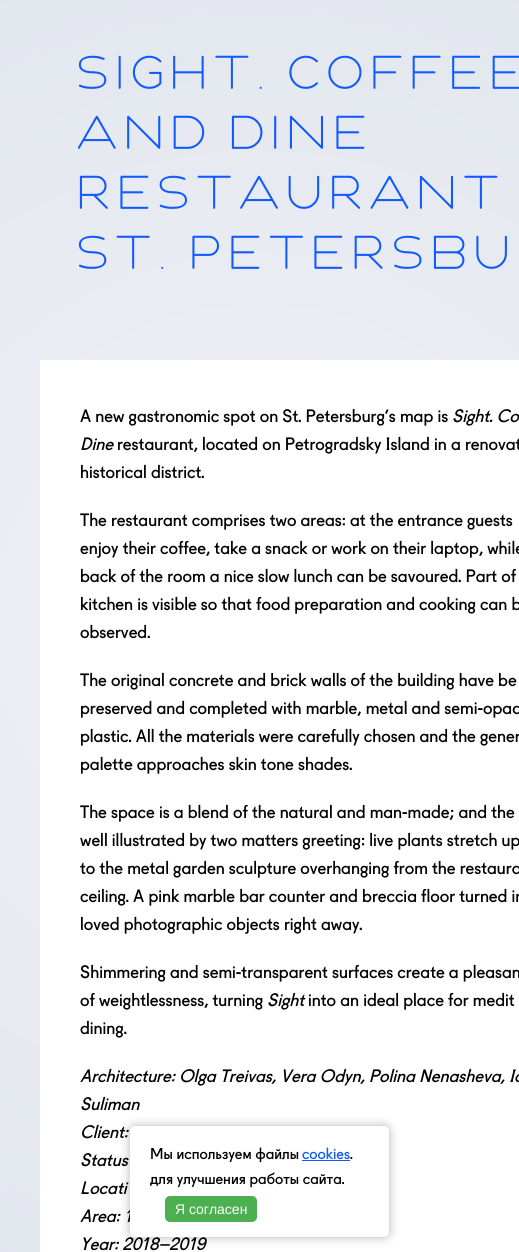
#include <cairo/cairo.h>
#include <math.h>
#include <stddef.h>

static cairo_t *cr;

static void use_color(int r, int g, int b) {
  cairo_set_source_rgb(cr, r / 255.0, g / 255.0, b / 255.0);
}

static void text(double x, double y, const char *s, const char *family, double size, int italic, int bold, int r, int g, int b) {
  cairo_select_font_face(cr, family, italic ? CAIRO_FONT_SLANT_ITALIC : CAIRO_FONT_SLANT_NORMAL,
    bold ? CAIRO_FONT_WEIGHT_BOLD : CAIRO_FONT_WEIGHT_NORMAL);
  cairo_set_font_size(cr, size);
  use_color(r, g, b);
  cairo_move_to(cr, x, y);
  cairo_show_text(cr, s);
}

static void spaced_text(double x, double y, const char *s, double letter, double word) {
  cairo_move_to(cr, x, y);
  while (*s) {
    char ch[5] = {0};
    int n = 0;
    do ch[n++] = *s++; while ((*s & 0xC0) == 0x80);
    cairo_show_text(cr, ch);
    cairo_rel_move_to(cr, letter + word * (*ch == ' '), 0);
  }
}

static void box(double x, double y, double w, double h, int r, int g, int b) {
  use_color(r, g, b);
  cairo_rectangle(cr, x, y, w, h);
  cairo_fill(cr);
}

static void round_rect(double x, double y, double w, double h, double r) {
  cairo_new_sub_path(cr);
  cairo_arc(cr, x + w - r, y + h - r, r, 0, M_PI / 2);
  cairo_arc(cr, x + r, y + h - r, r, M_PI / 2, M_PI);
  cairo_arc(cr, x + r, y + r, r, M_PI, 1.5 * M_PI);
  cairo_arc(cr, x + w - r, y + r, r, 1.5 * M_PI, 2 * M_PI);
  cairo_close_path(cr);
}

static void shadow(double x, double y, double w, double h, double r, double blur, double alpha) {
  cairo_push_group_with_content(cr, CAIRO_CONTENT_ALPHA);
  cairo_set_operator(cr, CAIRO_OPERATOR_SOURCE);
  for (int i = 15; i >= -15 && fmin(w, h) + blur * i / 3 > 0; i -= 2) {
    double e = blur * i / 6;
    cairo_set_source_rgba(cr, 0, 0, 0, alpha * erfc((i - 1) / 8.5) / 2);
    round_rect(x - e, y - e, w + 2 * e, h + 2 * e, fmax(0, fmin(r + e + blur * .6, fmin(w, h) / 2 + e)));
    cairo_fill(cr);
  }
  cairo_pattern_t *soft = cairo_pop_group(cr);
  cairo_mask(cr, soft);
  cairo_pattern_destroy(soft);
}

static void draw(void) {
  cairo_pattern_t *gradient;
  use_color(255, 255, 255);
  cairo_paint(cr);
  gradient = cairo_pattern_create_radial(260, 626, 0, 260, 626, 1000);
  cairo_pattern_add_color_stop_rgba(gradient, 0, 0.941, 0.949, 0.965, 1);
  cairo_pattern_add_color_stop_rgba(gradient, 1, 0.863, 0.882, 0.918, 1);
  cairo_set_source(cr, gradient);
  cairo_pattern_destroy(gradient);
  cairo_rectangle(cr, 0, 0, 519, 1252);
  cairo_fill(cr);
  box(40, 360, 479, 892, 255, 255, 255);
  use_color(0, 0, 0);
  shadow(130, 1126, 259, 111, 5, 5, 0.3);
  cairo_select_font_face(cr, "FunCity", CAIRO_FONT_SLANT_NORMAL, CAIRO_FONT_WEIGHT_NORMAL);
  cairo_set_font_size(cr, 51.75);
  use_color(16, 90, 255);
  spaced_text(68, 93, "Sight. Coffee", -10.3, 0);
  spaced_text(68, 153, "and dine", -10.3, 0);
  spaced_text(68, 213, "restaurant", -10.3, 0);
  spaced_text(68, 273, "St. Petersbu", -10.3, 0);
  text(80, 422, "A new gastronomic spot on St. Petersburg’s map is", "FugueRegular", 17.25, 0, 0, 0, 0, 0);
  text(452, 422, "Sight. Co", "FugueRegular", 17.25, 1, 0, 0, 0, 0);
  text(80, 450, "Dine", "FugueRegular", 17.25, 1, 0, 0, 0, 0);
  text(117, 450, "restaurant, located on Petrogradsky Island in a renovat", "FugueRegular", 17.25, 0, 0, 0, 0, 0);
  text(80, 478, "historical district.", "FugueRegular", 17.25, 0, 0, 0, 0, 0);
  text(80, 526, "The restaurant comprises two areas: at the entrance guests", "FugueRegular", 17.25, 0, 0, 0, 0, 0);
  text(80, 554, "enjoy their coffee, take a snack or work on their laptop, while", "FugueRegular", 17.25, 0, 0, 0, 0, 0);
  text(80, 582, "back of the room a nice slow lunch can be savoured. Part of", "FugueRegular", 17.25, 0, 0, 0, 0, 0);
  text(80, 610, "kitchen is visible so that food preparation and cooking can b", "FugueRegular", 17.25, 0, 0, 0, 0, 0);
  text(80, 638, "observed.", "FugueRegular", 17.25, 0, 0, 0, 0, 0);
  text(80, 686, "The original concrete and brick walls of the building have be", "FugueRegular", 17.25, 0, 0, 0, 0, 0);
  text(80, 714, "preserved and completed with marble, metal and semi-opaq", "FugueRegular", 17.25, 0, 0, 0, 0, 0);
  text(80, 742, "plastic. All the materials were carefully chosen and the gener", "FugueRegular", 17.25, 0, 0, 0, 0, 0);
  text(80, 770, "palette approaches skin tone shades.", "FugueRegular", 17.25, 0, 0, 0, 0, 0);
  text(80, 818, "The space is a blend of the natural and man-made; and the", "FugueRegular", 17.25, 0, 0, 0, 0, 0);
  text(80, 846, "well illustrated by two matters greeting: live plants stretch up", "FugueRegular", 17.25, 0, 0, 0, 0, 0);
  text(80, 874, "to the metal garden sculpture overhanging from the restaura", "FugueRegular", 17.25, 0, 0, 0, 0, 0);
  text(80, 902, "ceiling. A pink marble bar counter and breccia floor turned in", "FugueRegular", 17.25, 0, 0, 0, 0, 0);
  text(80, 930, "loved photographic objects right away.", "FugueRegular", 17.25, 0, 0, 0, 0, 0);
  text(80, 978, "Shimmering and semi-transparent surfaces create a pleasan", "FugueRegular", 17.25, 0, 0, 0, 0, 0);
  text(80, 1006, "of weightlessness, turning", "FugueRegular", 17.25, 0, 0, 0, 0, 0);
  text(267, 1006, "Sight", "FugueRegular", 17.25, 1, 0, 0, 0, 0);
  text(308, 1006, "into an ideal place for medit", "FugueRegular", 17.25, 0, 0, 0, 0, 0);
  text(80, 1034, "dining.", "FugueRegular", 17.25, 0, 0, 0, 0, 0);
  text(80, 1082, "Architecture: Olga Treivas, Vera Odyn, Polina Nenasheva, Id", "FugueRegular", 17.25, 1, 0, 0, 0, 0);
  text(80, 1110, "Suliman", "FugueRegular", 17.25, 1, 0, 0, 0, 0);
  text(80, 1138, "Client:", "FugueRegular", 17.25, 1, 0, 0, 0, 0);
  text(80, 1166, "Status", "FugueRegular", 17.25, 1, 0, 0, 0, 0);
  text(80, 1194, "Locati", "FugueRegular", 17.25, 1, 0, 0, 0, 0);
  text(80, 1222, "Area: 1", "FugueRegular", 17.25, 1, 0, 0, 0, 0);
  text(80, 1250, "Year: 2018–2019", "FugueRegular", 17.25, 1, 0, 0, 0, 0);
  use_color(255, 255, 255);
  round_rect(130, 1126, 259, 111, 5);
  cairo_fill(cr);
  text(150, 1159, "Мы используем файлы", "FugueRegular", 15, 0, 0, 0, 0, 0);
  text(302, 1159, "cookies", "FugueRegular", 15, 0, 0, 16, 90, 255);
  box(302, 1160, 48, 1, 16, 90, 255);
  text(350, 1159, ".", "FugueRegular", 15, 0, 0, 0, 0, 0);
  text(150, 1184, "для улучшения работы сайта.", "FugueRegular", 15, 0, 0, 0, 0, 0);
  use_color(76, 175, 80);
  round_rect(165, 1196, 92, 26, 5);
  cairo_fill(cr);
  text(175, 1214, "Я согласен", "Liberation Sans", 14, 0, 0, 255, 255, 255);
}

int main(void) {
  cairo_surface_t *surface = cairo_image_surface_create(CAIRO_FORMAT_RGB24, 519, 1252);
  cr = cairo_create(surface);
  cairo_font_options_t *options = cairo_font_options_create();
  cairo_font_options_set_hint_metrics(options, CAIRO_HINT_METRICS_OFF);
  cairo_font_options_set_hint_style(options, CAIRO_HINT_STYLE_NONE);
  cairo_set_font_options(cr, options);
  cairo_set_miter_limit(cr, 4);
  draw();
  cairo_surface_write_to_png(surface, "out.png");
  cairo_font_options_destroy(options);
  cairo_destroy(cr);
  cairo_surface_destroy(surface);
  return 0;
}
